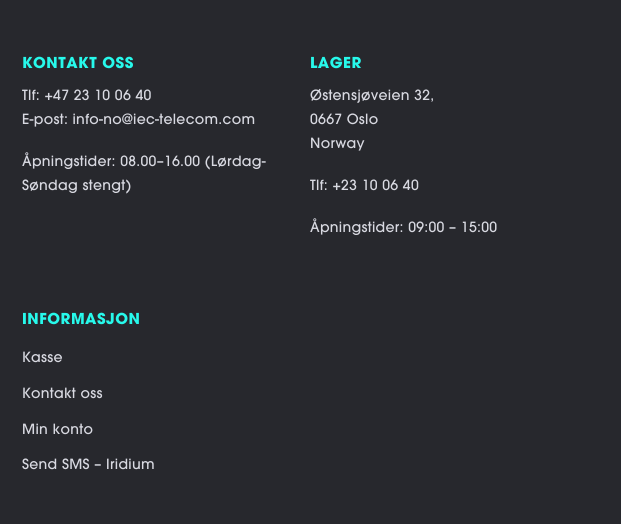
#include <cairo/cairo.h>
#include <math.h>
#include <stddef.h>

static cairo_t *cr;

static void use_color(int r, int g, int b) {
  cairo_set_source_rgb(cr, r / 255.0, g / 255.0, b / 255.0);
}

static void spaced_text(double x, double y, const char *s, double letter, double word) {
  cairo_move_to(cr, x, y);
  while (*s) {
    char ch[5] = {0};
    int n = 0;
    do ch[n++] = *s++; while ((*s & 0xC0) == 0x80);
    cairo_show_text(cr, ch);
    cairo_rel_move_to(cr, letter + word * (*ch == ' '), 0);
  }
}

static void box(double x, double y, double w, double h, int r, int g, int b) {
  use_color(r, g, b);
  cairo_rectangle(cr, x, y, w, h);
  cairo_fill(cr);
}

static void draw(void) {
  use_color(255, 255, 255);
  cairo_paint(cr);
  box(0, 0, 621, 524, 39, 40, 45);
  cairo_select_font_face(cr, "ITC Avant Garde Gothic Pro", CAIRO_FONT_SLANT_NORMAL, CAIRO_FONT_WEIGHT_BOLD);
  cairo_set_font_size(cr, 15);
  use_color(39, 249, 235);
  spaced_text(22, 68, "KONTAKT OSS", 0.5, 0);
  cairo_select_font_face(cr, "ITC Avant Garde Gothic Pro Medium", CAIRO_FONT_SLANT_NORMAL, CAIRO_FONT_WEIGHT_NORMAL);
  cairo_set_font_size(cr, 14);
  use_color(216, 217, 225);
  spaced_text(22, 100, "Tlf: +47 23 10 06 40", 0.3, 0);
  spaced_text(22, 124, "E-post: info-no@iec-telecom.com", 0.3, 0);
  spaced_text(22, 166, "Åpningstider: 08.00–16.00 (Lørdag-", 0.3, 0);
  spaced_text(22, 190, "Søndag stengt)", 0.3, 0);
  cairo_select_font_face(cr, "ITC Avant Garde Gothic Pro", CAIRO_FONT_SLANT_NORMAL, CAIRO_FONT_WEIGHT_BOLD);
  cairo_set_font_size(cr, 15);
  use_color(39, 249, 235);
  spaced_text(310, 68, "LAGER", 0.5, 0);
  cairo_select_font_face(cr, "ITC Avant Garde Gothic Pro Medium", CAIRO_FONT_SLANT_NORMAL, CAIRO_FONT_WEIGHT_NORMAL);
  cairo_set_font_size(cr, 14);
  use_color(216, 217, 225);
  spaced_text(310, 100, "Østensjøveien 32,", 0.3, 0);
  spaced_text(310, 124, "0667 Oslo", 0.3, 0);
  spaced_text(310, 148, "Norway", 0.3, 0);
  spaced_text(310, 190, "Tlf: +23 10 06 40", 0.3, 0);
  spaced_text(310, 232, "Åpningstider: 09:00 – 15:00", 0.3, 0);
  cairo_select_font_face(cr, "ITC Avant Garde Gothic Pro", CAIRO_FONT_SLANT_NORMAL, CAIRO_FONT_WEIGHT_BOLD);
  cairo_set_font_size(cr, 15);
  use_color(39, 249, 235);
  spaced_text(22, 324, "INFORMASJON", 0.5, 0);
  cairo_select_font_face(cr, "ITC Avant Garde Gothic Pro Medium", CAIRO_FONT_SLANT_NORMAL, CAIRO_FONT_WEIGHT_NORMAL);
  cairo_set_font_size(cr, 14);
  use_color(216, 217, 225);
  spaced_text(22, 362, "Kasse", 0.3, 0);
  spaced_text(22, 398, "Kontakt oss", 0.3, 0);
  spaced_text(22, 434, "Min konto", 0.3, 0);
  spaced_text(22, 469, "Send SMS – Iridium", 0.3, 0);
}

int main(void) {
  cairo_surface_t *surface = cairo_image_surface_create(CAIRO_FORMAT_RGB24, 621, 526);
  cr = cairo_create(surface);
  cairo_font_options_t *options = cairo_font_options_create();
  cairo_font_options_set_hint_metrics(options, CAIRO_HINT_METRICS_OFF);
  cairo_font_options_set_hint_style(options, CAIRO_HINT_STYLE_NONE);
  cairo_set_font_options(cr, options);
  cairo_set_miter_limit(cr, 4);
  draw();
  cairo_surface_write_to_png(surface, "out.png");
  cairo_font_options_destroy(options);
  cairo_destroy(cr);
  cairo_surface_destroy(surface);
  return 0;
}
